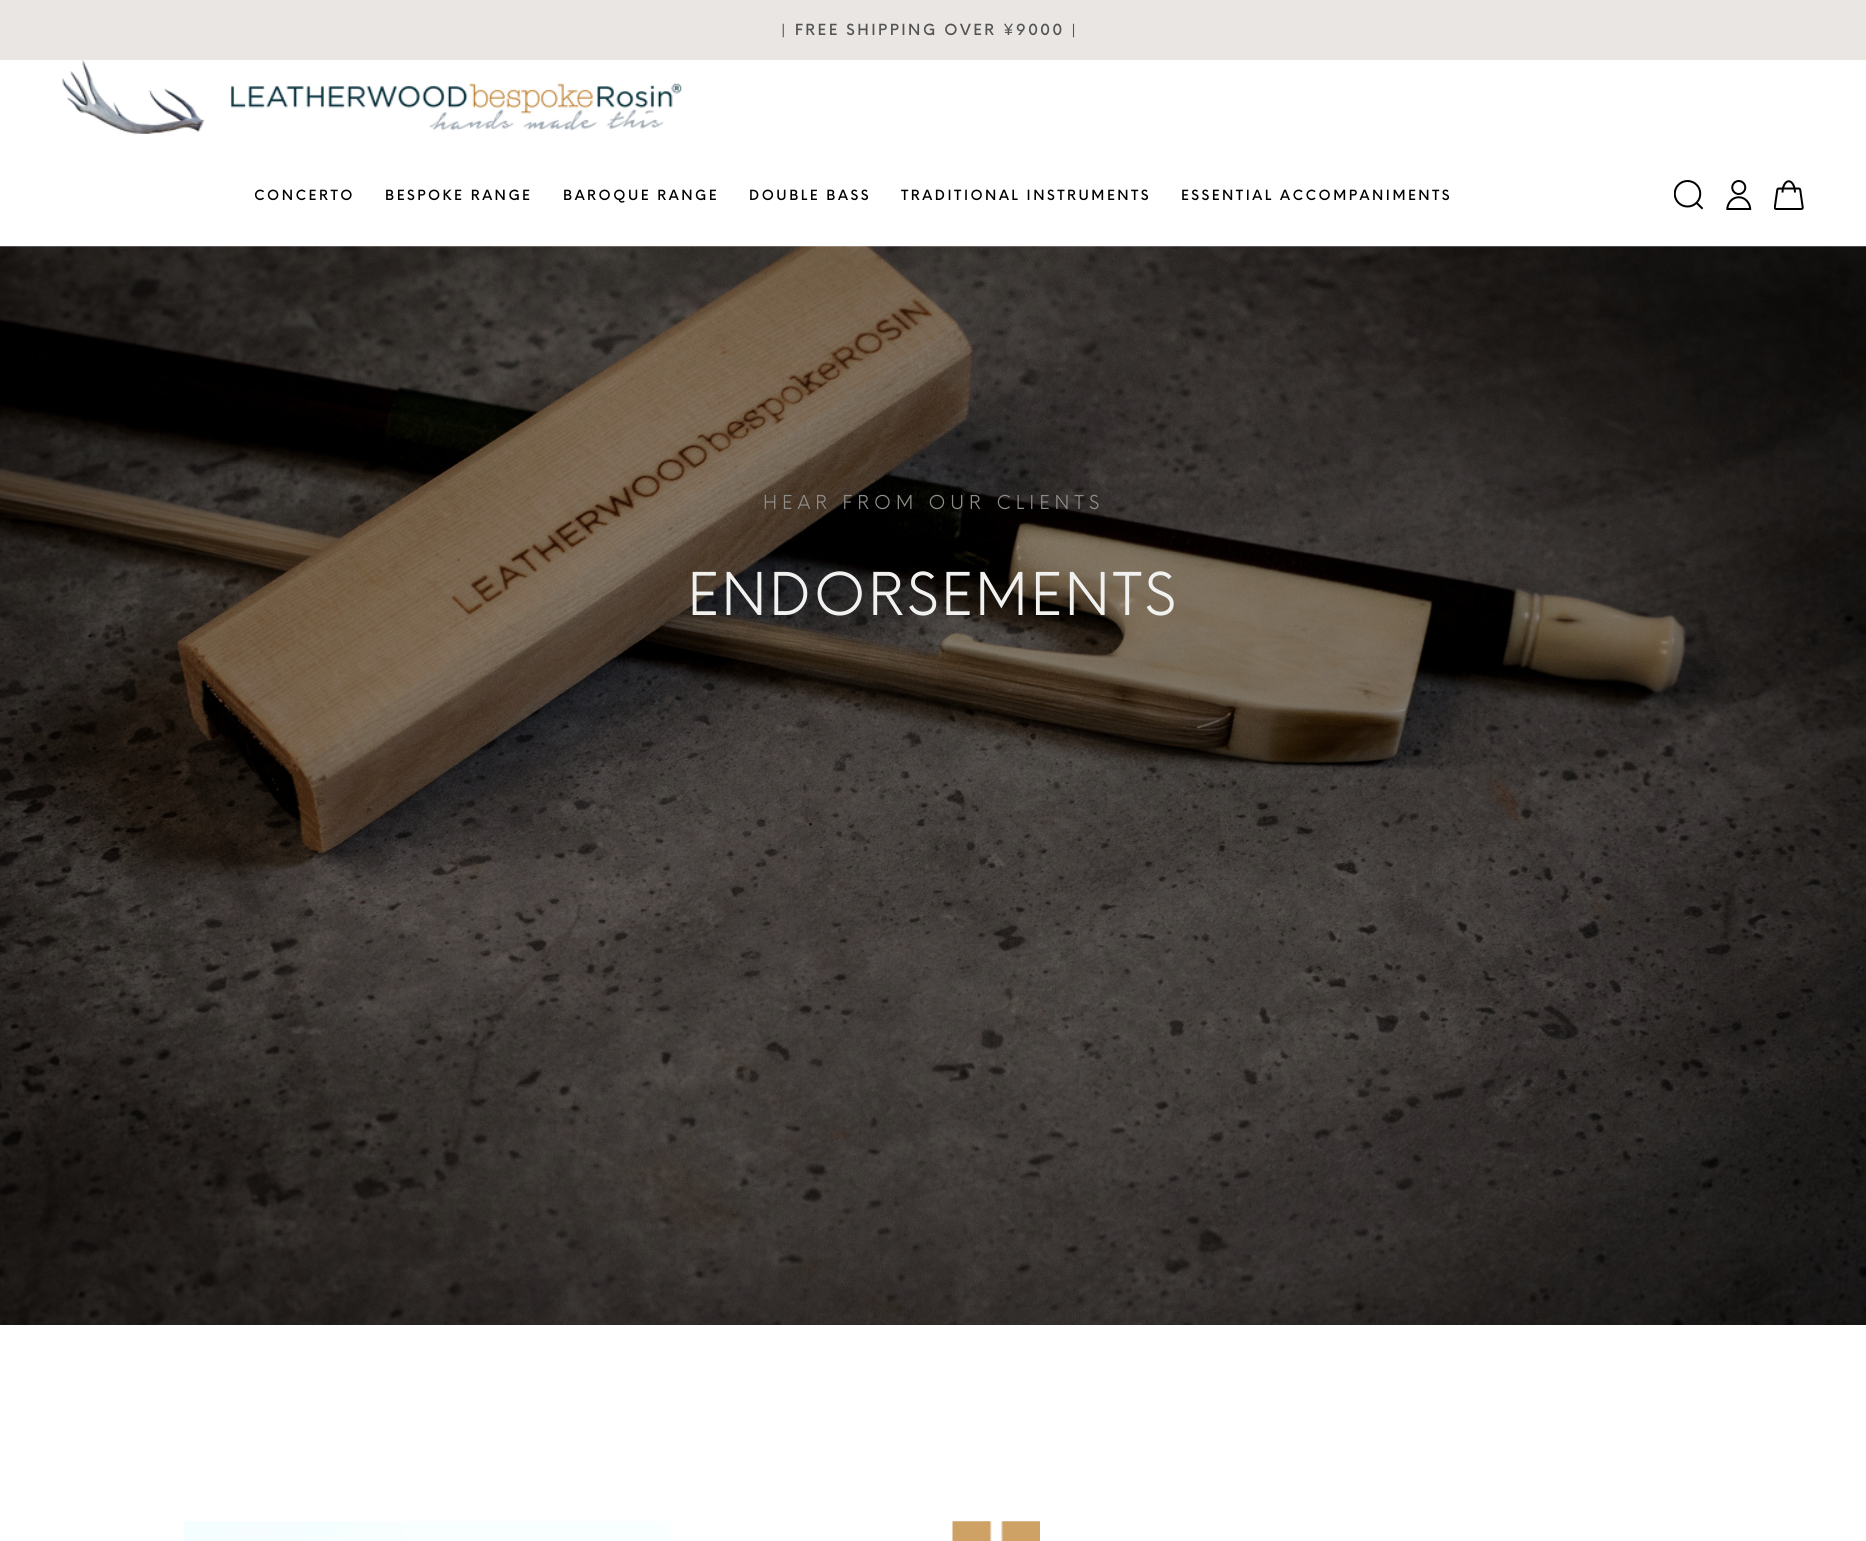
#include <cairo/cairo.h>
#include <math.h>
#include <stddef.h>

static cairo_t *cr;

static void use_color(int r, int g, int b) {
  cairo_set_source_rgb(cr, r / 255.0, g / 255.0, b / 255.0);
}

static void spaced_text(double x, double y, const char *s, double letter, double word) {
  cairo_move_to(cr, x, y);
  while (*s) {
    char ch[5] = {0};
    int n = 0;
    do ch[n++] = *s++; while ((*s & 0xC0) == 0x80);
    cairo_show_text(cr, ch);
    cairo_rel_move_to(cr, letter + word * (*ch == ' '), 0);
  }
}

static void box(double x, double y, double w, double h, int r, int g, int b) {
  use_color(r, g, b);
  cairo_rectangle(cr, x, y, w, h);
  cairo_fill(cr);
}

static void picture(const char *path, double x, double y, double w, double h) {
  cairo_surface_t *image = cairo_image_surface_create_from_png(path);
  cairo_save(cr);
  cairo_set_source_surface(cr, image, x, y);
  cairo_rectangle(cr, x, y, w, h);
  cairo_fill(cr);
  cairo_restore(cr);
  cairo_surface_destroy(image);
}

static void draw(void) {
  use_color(255, 255, 255);
  cairo_paint(cr);
  box(0, 0, 1866, 60, 234, 230, 227);
  picture("img_01.png", 62, 60, 620, 74);
  picture("img_02.png", 1674, 180, 30, 30);
  picture("img_03.png", 1726, 180, 26, 30);
  picture("img_04.png", 1774, 180, 30, 30);
  picture("img_05.png", 0, 246, 1866, 1079);
  picture("img_06.png", 184, 1521, 488, 20);
  picture("img_07.png", 952, 1521, 88, 20);
  cairo_select_font_face(cr, "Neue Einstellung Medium", CAIRO_FONT_SLANT_NORMAL, CAIRO_FONT_WEIGHT_NORMAL);
  cairo_set_font_size(cr, 15);
  use_color(84, 84, 84);
  spaced_text(781, 35, "| FREE SHIPPING OVER ¥9000 |", 2.5, 0);
  cairo_set_font_size(cr, 13.75);
  use_color(0, 0, 0);
  spaced_text(254, 200, "CONCERTO", 2.5, 0);
  spaced_text(385, 200, "BESPOKE RANGE", 2.5, 0);
  spaced_text(563, 200, "BAROQUE RANGE", 2.5, 0);
  spaced_text(749, 200, "DOUBLE BASS", 2.5, 0);
  spaced_text(901, 200, "TRADITIONAL INSTRUMENTS", 2.5, 0);
  spaced_text(1181, 200, "ESSENTIAL ACCOMPANIMENTS", 2.5, 0);
  cairo_select_font_face(cr, "Neue Einstellung", CAIRO_FONT_SLANT_NORMAL, CAIRO_FONT_WEIGHT_NORMAL);
  cairo_set_font_size(cr, 18.75);
  use_color(143, 141, 138);
  spaced_text(763, 509, "HEAR FROM OUR CLIENTS", 5, 0);
  cairo_set_font_size(cr, 57.5);
  use_color(241, 241, 240);
  spaced_text(687, 615, "ENDORSEMENTS", 2.5, 0);
}

int main(void) {
  cairo_surface_t *surface = cairo_image_surface_create(CAIRO_FORMAT_RGB24, 1866, 1541);
  cr = cairo_create(surface);
  cairo_font_options_t *options = cairo_font_options_create();
  cairo_font_options_set_hint_metrics(options, CAIRO_HINT_METRICS_OFF);
  cairo_font_options_set_hint_style(options, CAIRO_HINT_STYLE_NONE);
  cairo_set_font_options(cr, options);
  cairo_set_miter_limit(cr, 4);
  draw();
  cairo_surface_write_to_png(surface, "out.png");
  cairo_font_options_destroy(options);
  cairo_destroy(cr);
  cairo_surface_destroy(surface);
  return 0;
}
